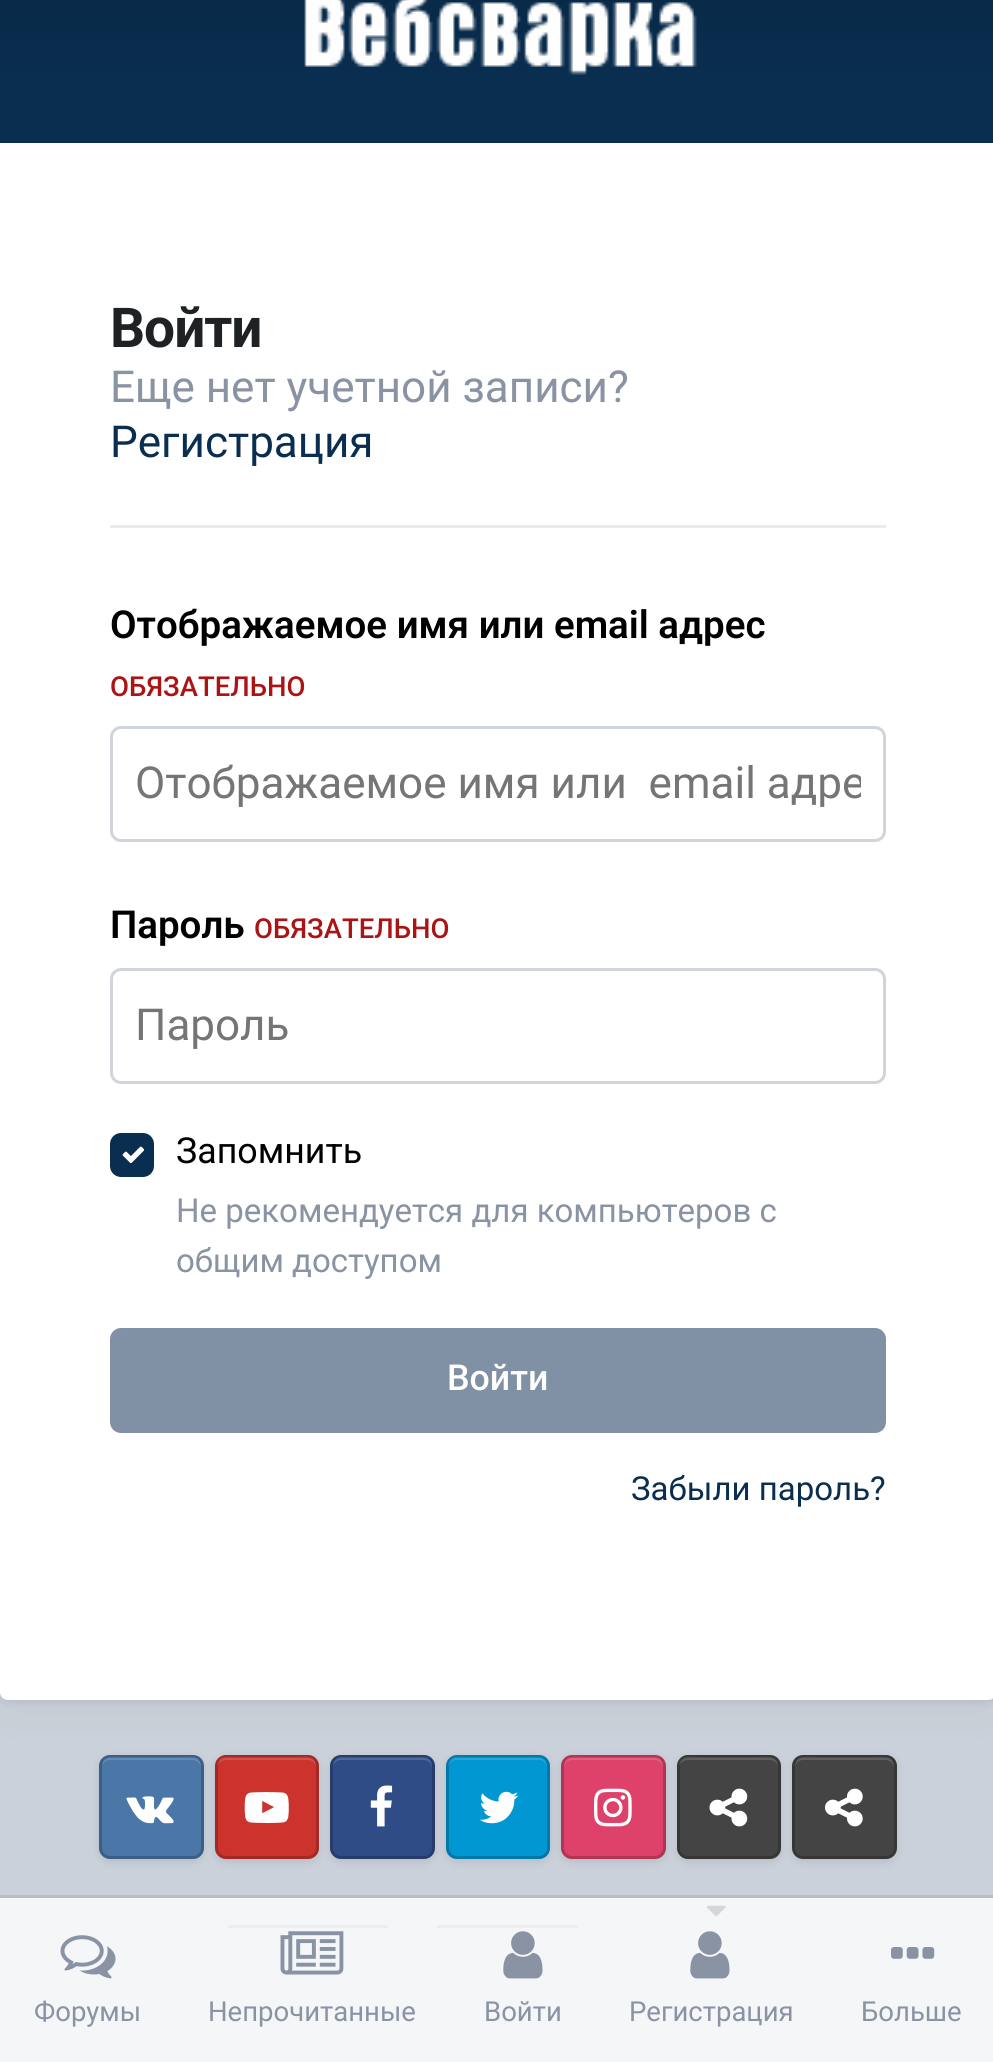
#include <cairo/cairo.h>
#include <math.h>
#include <stddef.h>

static cairo_t *cr;

static void use_color(int r, int g, int b) {
  cairo_set_source_rgb(cr, r / 255.0, g / 255.0, b / 255.0);
}

static void text(double x, double y, const char *s, const char *family, double size, int italic, int bold, int r, int g, int b) {
  cairo_select_font_face(cr, family, italic ? CAIRO_FONT_SLANT_ITALIC : CAIRO_FONT_SLANT_NORMAL,
    bold ? CAIRO_FONT_WEIGHT_BOLD : CAIRO_FONT_WEIGHT_NORMAL);
  cairo_set_font_size(cr, size);
  use_color(r, g, b);
  cairo_move_to(cr, x, y);
  cairo_show_text(cr, s);
}

static void spaced_text(double x, double y, const char *s, double letter, double word) {
  cairo_move_to(cr, x, y);
  while (*s) {
    char ch[5] = {0};
    int n = 0;
    do ch[n++] = *s++; while ((*s & 0xC0) == 0x80);
    cairo_show_text(cr, ch);
    cairo_rel_move_to(cr, letter + word * (*ch == ' '), 0);
  }
}

static void box(double x, double y, double w, double h, int r, int g, int b) {
  use_color(r, g, b);
  cairo_rectangle(cr, x, y, w, h);
  cairo_fill(cr);
}

static void round_rect(double x, double y, double w, double h, double r) {
  cairo_new_sub_path(cr);
  cairo_arc(cr, x + w - r, y + h - r, r, 0, M_PI / 2);
  cairo_arc(cr, x + r, y + h - r, r, M_PI / 2, M_PI);
  cairo_arc(cr, x + r, y + r, r, M_PI, 1.5 * M_PI);
  cairo_arc(cr, x + w - r, y + r, r, 1.5 * M_PI, 2 * M_PI);
  cairo_close_path(cr);
}

static void shadow(double x, double y, double w, double h, double r, double blur, double alpha) {
  cairo_push_group_with_content(cr, CAIRO_CONTENT_ALPHA);
  cairo_set_operator(cr, CAIRO_OPERATOR_SOURCE);
  for (int i = 15; i >= -15 && fmin(w, h) + blur * i / 3 > 0; i -= 2) {
    double e = blur * i / 6;
    cairo_set_source_rgba(cr, 0, 0, 0, alpha * erfc((i - 1) / 8.5) / 2);
    round_rect(x - e, y - e, w + 2 * e, h + 2 * e, fmax(0, fmin(r + e + blur * .6, fmin(w, h) / 2 + e)));
    cairo_fill(cr);
  }
  cairo_pattern_t *soft = cairo_pop_group(cr);
  cairo_mask(cr, soft);
  cairo_pattern_destroy(soft);
}

static void picture(const char *path, double x, double y, double w, double h) {
  cairo_surface_t *image = cairo_image_surface_create_from_png(path);
  cairo_save(cr);
  cairo_set_source_surface(cr, image, x, y);
  cairo_rectangle(cr, x, y, w, h);
  cairo_fill(cr);
  cairo_restore(cr);
  cairo_surface_destroy(image);
}

static void draw(void) {
  cairo_pattern_t *gradient;
  use_color(203, 209, 218);
  cairo_paint(cr);
  use_color(0, 0, 0);
  shadow(0, 146, 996, 1556, 8, 4, 0.08);
  shadow(0, 143, 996, 1557, 8, 27.5, 0.06);
  gradient = cairo_pattern_create_linear(498, -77, 498, 143);
  cairo_pattern_add_color_stop_rgba(gradient, 0, 0.031, 0.145, 0.251, 1);
  cairo_pattern_add_color_stop_rgba(gradient, 0.7, 0.039, 0.18, 0.314, 1);
  cairo_set_source(cr, gradient);
  cairo_pattern_destroy(gradient);
  cairo_rectangle(cr, 0, 0, 993, 143);
  cairo_fill(cr);
  picture("img_01.png", 304, 0, 393, 75);
  use_color(255, 255, 255);
  cairo_new_path(cr);
  cairo_move_to(cr, 0, 143);
  cairo_line_to(cr, 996, 143);
  cairo_line_to(cr, 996, 1692);
  cairo_curve_to(cr, 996, 1696.5, 992.5, 1700, 988, 1700);
  cairo_line_to(cr, 8, 1700);
  cairo_curve_to(cr, 3.5, 1700, 0, 1696.5, 0, 1692);
  cairo_close_path(cr);
  cairo_fill(cr);
  box(110, 525, 776, 3, 235, 235, 235);
  round_rect(111.5, 727.5, 773, 113, 9.5);
  use_color(208, 212, 219);
  cairo_set_line_width(cr, 3);
  cairo_stroke(cr);
  round_rect(111.5, 969.5, 773, 113, 9.5);
  cairo_stroke(cr);
  use_color(10, 46, 80);
  round_rect(111.5, 1134.5, 41, 41, 9.5);
  cairo_fill_preserve(cr);
  cairo_stroke(cr);
  picture("img_02.png", 122, 1146, 23, 17);
  use_color(129, 145, 165);
  round_rect(110, 1328, 776, 105, 11);
  cairo_fill(cr);
  use_color(0, 0, 0);
  shadow(99, 1757, 105, 105, 11, 4, 0.1);
  use_color(74, 118, 168);
  round_rect(99, 1755, 105, 104, 11);
  cairo_fill(cr);
  use_color(101, 139, 181);
  cairo_new_path(cr);
  cairo_move_to(cr, 110, 1760);
  cairo_curve_to(cr, 105, 1760, 102, 1764, 102, 1768);
  cairo_curve_to(cr, 102, 1754, 112, 1757, 124, 1757);
  cairo_line_to(cr, 179, 1757);
  cairo_curve_to(cr, 191, 1757, 201, 1754, 201, 1768);
  cairo_curve_to(cr, 201, 1764, 197, 1760, 192, 1760);
  cairo_close_path(cr);
  cairo_fill(cr);
  picture("img_03.png", 126, 1796, 48, 28);
  round_rect(100.5, 1756.5, 102, 101, 9.5);
  cairo_set_source_rgba(cr, 0, 0, 0, 0.2);
  cairo_stroke(cr);
  use_color(0, 0, 0);
  shadow(215, 1757, 104, 105, 11, 4, 0.1);
  use_color(204, 51, 45);
  round_rect(215, 1755, 104, 104, 11);
  cairo_fill(cr);
  use_color(212, 82, 77);
  cairo_new_path(cr);
  cairo_move_to(cr, 226, 1760);
  cairo_curve_to(cr, 221, 1760, 217, 1764, 217, 1768);
  cairo_curve_to(cr, 217, 1754, 227, 1757, 239, 1757);
  cairo_line_to(cr, 294, 1757);
  cairo_curve_to(cr, 306, 1757, 316, 1754, 316, 1768);
  cairo_curve_to(cr, 316, 1764, 313, 1760, 308, 1760);
  cairo_close_path(cr);
  cairo_fill(cr);
  picture("img_04.png", 244, 1792, 45, 31);
  round_rect(216.5, 1756.5, 101, 101, 9.5);
  cairo_set_source_rgba(cr, 0, 0, 0, 0.2);
  cairo_stroke(cr);
  use_color(0, 0, 0);
  shadow(330, 1757, 105, 105, 11, 4, 0.1);
  use_color(48, 76, 135);
  round_rect(330, 1755, 105, 104, 11);
  cairo_fill(cr);
  use_color(79, 103, 153);
  cairo_new_path(cr);
  cairo_move_to(cr, 341, 1760);
  cairo_curve_to(cr, 336, 1760, 333, 1764, 333, 1768);
  cairo_curve_to(cr, 333, 1754, 343, 1757, 355, 1757);
  cairo_line_to(cr, 410, 1757);
  cairo_curve_to(cr, 422, 1757, 432, 1754, 432, 1768);
  cairo_curve_to(cr, 432, 1764, 428, 1760, 424, 1760);
  cairo_close_path(cr);
  cairo_fill(cr);
  picture("img_05.png", 370, 1785, 23, 42);
  round_rect(331.5, 1756.5, 102, 101, 9.5);
  cairo_set_source_rgba(cr, 0, 0, 0, 0.2);
  cairo_stroke(cr);
  use_color(0, 0, 0);
  shadow(446, 1757, 104, 105, 11, 4, 0.1);
  use_color(0, 151, 211);
  round_rect(446, 1755, 104, 104, 11);
  cairo_fill(cr);
  use_color(38, 167, 218);
  cairo_new_path(cr);
  cairo_move_to(cr, 456, 1760);
  cairo_curve_to(cr, 452, 1760, 448, 1764, 448, 1768);
  cairo_curve_to(cr, 448, 1754, 458, 1757, 470, 1757);
  cairo_line_to(cr, 525, 1757);
  cairo_curve_to(cr, 537, 1757, 547, 1754, 547, 1768);
  cairo_curve_to(cr, 547, 1764, 544, 1760, 539, 1760);
  cairo_close_path(cr);
  cairo_fill(cr);
  picture("img_06.png", 479, 1791, 40, 33);
  round_rect(447.5, 1756.5, 101, 101, 9.5);
  cairo_set_source_rgba(cr, 0, 0, 0, 0.2);
  cairo_stroke(cr);
  use_color(0, 0, 0);
  shadow(561, 1757, 105, 105, 11, 4, 0.1);
  use_color(222, 65, 106);
  round_rect(561, 1755, 105, 104, 11);
  cairo_fill(cr);
  use_color(227, 94, 128);
  cairo_new_path(cr);
  cairo_move_to(cr, 572, 1760);
  cairo_curve_to(cr, 567, 1760, 564, 1764, 564, 1768);
  cairo_curve_to(cr, 564, 1754, 574, 1757, 586, 1757);
  cairo_line_to(cr, 641, 1757);
  cairo_curve_to(cr, 653, 1757, 663, 1754, 663, 1768);
  cairo_curve_to(cr, 663, 1764, 659, 1760, 654, 1760);
  cairo_close_path(cr);
  cairo_fill(cr);
  picture("img_07.png", 594, 1788, 38, 39);
  round_rect(562.5, 1756.5, 102, 101, 9.5);
  cairo_set_source_rgba(cr, 0, 0, 0, 0.2);
  cairo_stroke(cr);
  use_color(0, 0, 0);
  shadow(677, 1757, 104, 105, 11, 4, 0.1);
  use_color(68, 68, 68);
  round_rect(677, 1755, 104, 104, 11);
  cairo_fill(cr);
  use_color(96, 96, 96);
  cairo_new_path(cr);
  cairo_move_to(cr, 688, 1760);
  cairo_curve_to(cr, 683, 1760, 679, 1764, 679, 1768);
  cairo_curve_to(cr, 679, 1754, 689, 1757, 701, 1757);
  cairo_line_to(cr, 756, 1757);
  cairo_curve_to(cr, 768, 1757, 778, 1754, 778, 1768);
  cairo_curve_to(cr, 778, 1764, 775, 1760, 770, 1760);
  cairo_close_path(cr);
  cairo_fill(cr);
  picture("img_08.png", 709, 1788, 39, 39);
  round_rect(678.5, 1756.5, 101, 101, 9.5);
  cairo_set_source_rgba(cr, 0, 0, 0, 0.2);
  cairo_stroke(cr);
  use_color(0, 0, 0);
  shadow(792, 1757, 105, 105, 11, 4, 0.1);
  use_color(68, 68, 68);
  round_rect(792, 1755, 105, 104, 11);
  cairo_fill(cr);
  use_color(96, 96, 96);
  cairo_new_path(cr);
  cairo_move_to(cr, 803, 1760);
  cairo_curve_to(cr, 798, 1760, 795, 1764, 795, 1768);
  cairo_curve_to(cr, 795, 1754, 805, 1757, 817, 1757);
  cairo_line_to(cr, 872, 1757);
  cairo_curve_to(cr, 884, 1757, 894, 1754, 894, 1768);
  cairo_curve_to(cr, 894, 1764, 890, 1760, 886, 1760);
  cairo_close_path(cr);
  cairo_fill(cr);
  picture("img_09.png", 825, 1788, 38, 39);
  round_rect(793.5, 1756.5, 102, 101, 9.5);
  cairo_set_source_rgba(cr, 0, 0, 0, 0.2);
  cairo_stroke(cr);
  picture("img_10.png", 706, 1905, 20, 12);
  box(228, 1925, 160, 3, 156, 165, 175);
  box(437, 1925, 141, 3, 156, 165, 175);
  cairo_set_source_rgba(cr, 0, 0, 0, 0.1);
  cairo_new_path(cr);
  cairo_move_to(cr, 0, 1895);
  cairo_line_to(cr, 0, 1898);
  cairo_line_to(cr, 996, 1898);
  cairo_line_to(cr, 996, 2060);
  cairo_line_to(cr, 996, 1895);
  cairo_close_path(cr);
  cairo_fill(cr);
  cairo_set_source_rgba(cr, 1, 1, 1, 0.8);
  cairo_rectangle(cr, 0, 1898, 993, 164);
  cairo_fill(cr);
  picture("img_11.png", 60, 1935, 56, 44);
  picture("img_12.png", 280, 1931, 64, 44);
  picture("img_13.png", 503, 1931, 40, 48);
  picture("img_14.png", 690, 1931, 40, 48);
  picture("img_15.png", 891, 1947, 44, 12);
  cairo_select_font_face(cr, "Roboto", CAIRO_FONT_SLANT_NORMAL, CAIRO_FONT_WEIGHT_BOLD);
  cairo_set_font_size(cr, 55);
  use_color(30, 34, 37);
  spaced_text(110, 347, "Войти", -1, 0);
  text(110, 402, "Еще нет учетной записи?", "Roboto", 44, 0, 0, 138, 147, 164);
  text(110, 457, "Регистрация", "Roboto", 44, 0, 0, 10, 46, 80);
  text(110, 638, "Отображаемое имя или email адрес", "Roboto SemiBold", 38.5, 0, 0, 0, 0, 0);
  text(110, 696, "ОБЯЗАТЕЛЬНО", "Roboto Medium", 27.5, 0, 0, 170, 20, 20);
  cairo_save(cr);
  cairo_rectangle(cr, 135, 756, 726, 53);
  cairo_clip(cr);
  text(135, 798, "Отображаемое имя или  email адре", "Roboto", 44, 0, 0, 117, 117, 117);
  cairo_restore(cr);
  text(110, 938, "Пароль", "Roboto SemiBold", 38.5, 0, 0, 0, 0, 0);
  text(254, 938, "ОБЯЗАТЕЛЬНО", "Roboto Medium", 27.5, 0, 0, 170, 20, 20);
  text(135, 1040, "Пароль", "Roboto", 44, 0, 0, 117, 117, 117);
  text(176, 1163, "Запомнить", "Roboto", 35.75, 0, 0, 0, 0, 0);
  text(176, 1222, "Не рекомендуется для компьютеров с", "Roboto", 33, 0, 0, 138, 147, 164);
  text(176, 1272, "общим доступом", "Roboto", 33, 0, 0, 138, 147, 164);
  text(447, 1390, "Войти", "Roboto Medium", 35.75, 0, 0, 255, 255, 255);
  text(631, 1500, "Забыли пароль?", "Roboto", 33, 0, 0, 10, 46, 80);
  text(34, 2021, "Форумы", "Roboto", 27.5, 0, 0, 138, 147, 164);
  text(208, 2021, "Непрочитанные", "Roboto", 27.5, 0, 0, 138, 147, 164);
  text(484, 2021, "Войти", "Roboto", 27.5, 0, 0, 138, 147, 164);
  text(629, 2021, "Регистрация", "Roboto", 27.5, 0, 0, 138, 147, 164);
  text(861, 2021, "Больше", "Roboto", 27.5, 0, 0, 138, 147, 164);
}

int main(void) {
  cairo_surface_t *surface = cairo_image_surface_create(CAIRO_FORMAT_RGB24, 993, 2062);
  cr = cairo_create(surface);
  cairo_font_options_t *options = cairo_font_options_create();
  cairo_font_options_set_hint_metrics(options, CAIRO_HINT_METRICS_OFF);
  cairo_font_options_set_hint_style(options, CAIRO_HINT_STYLE_NONE);
  cairo_set_font_options(cr, options);
  cairo_set_miter_limit(cr, 4);
  draw();
  cairo_surface_write_to_png(surface, "out.png");
  cairo_font_options_destroy(options);
  cairo_destroy(cr);
  cairo_surface_destroy(surface);
  return 0;
}
